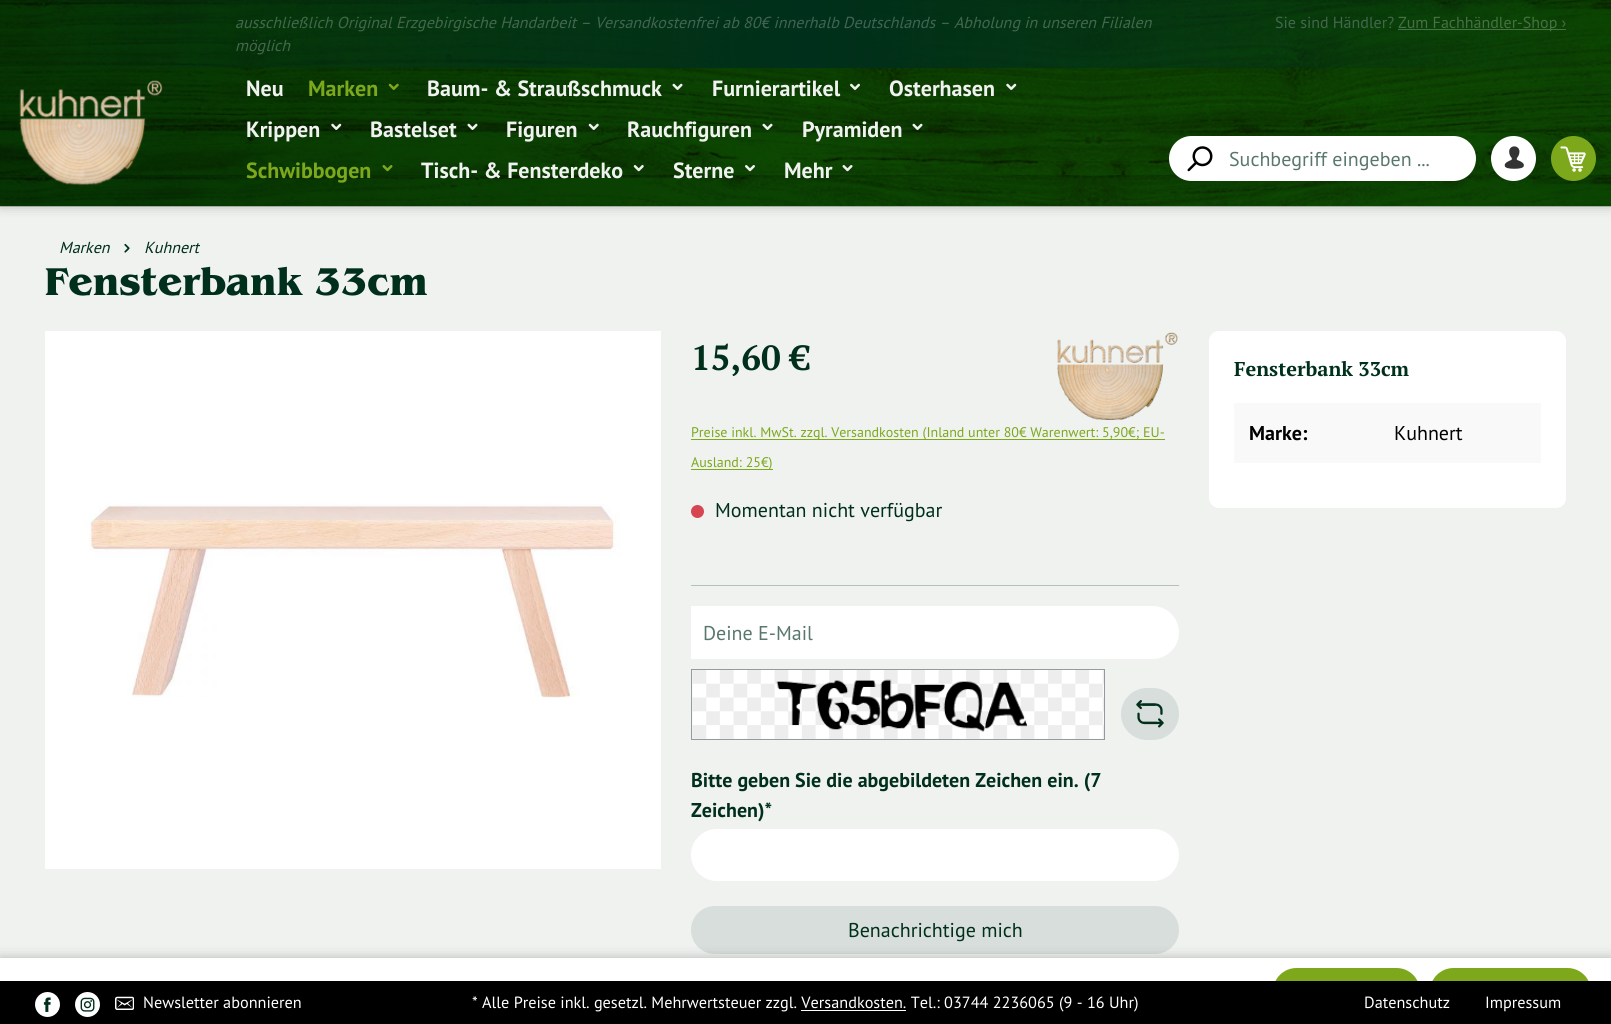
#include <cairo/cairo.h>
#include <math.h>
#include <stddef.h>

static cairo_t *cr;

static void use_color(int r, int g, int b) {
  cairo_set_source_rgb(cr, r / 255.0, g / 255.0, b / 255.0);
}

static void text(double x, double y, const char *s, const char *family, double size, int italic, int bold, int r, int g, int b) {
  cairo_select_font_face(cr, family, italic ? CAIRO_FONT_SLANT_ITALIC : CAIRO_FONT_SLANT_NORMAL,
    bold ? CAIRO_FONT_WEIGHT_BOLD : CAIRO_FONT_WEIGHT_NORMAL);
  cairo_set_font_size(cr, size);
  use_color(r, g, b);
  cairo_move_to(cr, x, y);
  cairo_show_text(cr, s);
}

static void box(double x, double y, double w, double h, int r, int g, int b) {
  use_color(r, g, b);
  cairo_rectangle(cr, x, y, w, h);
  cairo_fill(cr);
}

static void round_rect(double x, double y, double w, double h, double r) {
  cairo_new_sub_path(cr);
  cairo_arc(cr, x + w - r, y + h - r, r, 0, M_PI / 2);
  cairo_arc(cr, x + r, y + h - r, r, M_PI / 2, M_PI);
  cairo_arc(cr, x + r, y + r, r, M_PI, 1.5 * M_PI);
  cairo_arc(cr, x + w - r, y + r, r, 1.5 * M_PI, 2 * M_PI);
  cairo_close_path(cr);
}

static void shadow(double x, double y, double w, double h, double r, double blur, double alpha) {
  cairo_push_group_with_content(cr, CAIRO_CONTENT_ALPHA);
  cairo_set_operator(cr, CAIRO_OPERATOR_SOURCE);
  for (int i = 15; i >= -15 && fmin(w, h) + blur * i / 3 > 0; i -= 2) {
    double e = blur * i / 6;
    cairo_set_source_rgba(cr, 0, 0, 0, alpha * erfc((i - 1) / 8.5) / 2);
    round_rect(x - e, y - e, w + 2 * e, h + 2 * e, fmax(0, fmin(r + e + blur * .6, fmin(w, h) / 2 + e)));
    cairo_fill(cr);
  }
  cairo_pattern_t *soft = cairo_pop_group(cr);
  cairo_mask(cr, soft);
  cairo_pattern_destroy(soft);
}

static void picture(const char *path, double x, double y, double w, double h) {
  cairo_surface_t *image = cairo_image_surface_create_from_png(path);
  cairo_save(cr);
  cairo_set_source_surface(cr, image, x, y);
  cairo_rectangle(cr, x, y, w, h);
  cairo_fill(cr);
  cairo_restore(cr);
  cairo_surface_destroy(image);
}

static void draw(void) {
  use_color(240, 242, 240);
  cairo_paint(cr);
  use_color(0, 0, 0);
  shadow(0, 0, 1611, 206, 0, 6, 0.25);
  picture("img_01.png", 0, 0, 1611, 207);
  cairo_set_source_rgba(cr, 1, 1, 1, 0.25);
  cairo_rectangle(cr, 1398, 29, 168, 1);
  cairo_fill(cr);
  picture("img_02.png", 19, 80, 144, 106);
  picture("img_03.png", 388, 83, 11, 7);
  picture("img_04.png", 672, 83, 11, 7);
  picture("img_05.png", 850, 83, 10, 7);
  picture("img_06.png", 1006, 83, 11, 7);
  picture("img_07.png", 331, 123, 11, 7);
  picture("img_08.png", 467, 123, 11, 7);
  picture("img_09.png", 588, 123, 11, 7);
  picture("img_10.png", 762, 123, 11, 7);
  picture("img_11.png", 912, 123, 11, 7);
  picture("img_12.png", 382, 165, 11, 7);
  picture("img_13.png", 633, 165, 11, 7);
  picture("img_14.png", 745, 165, 10, 7);
  picture("img_15.png", 842, 165, 11, 7);
  use_color(255, 255, 255);
  round_rect(1169, 136, 307, 45, 22.5);
  cairo_fill(cr);
  picture("img_16.png", 1187, 146, 26, 26);
  picture("img_17.png", 1491, 136, 45, 45);
  picture("img_18.png", 1551, 136, 45, 45);
  picture("img_19.png", 124, 243, 6, 10);
  box(45, 331, 616, 538, 255, 255, 255);
  picture("img_20.png", 84, 503, 537, 195);
  picture("img_21.png", 1057, 332, 121, 88);
  box(691, 439, 474, 1, 125, 168, 28);
  box(691, 469, 82, 1, 125, 168, 28);
  use_color(214, 69, 80);
  cairo_arc(cr, 697.5, 511.5, 6.5, 0, 2 * M_PI);
  cairo_fill(cr);
  box(691, 585, 488, 1, 180, 193, 187);
  use_color(255, 255, 255);
  cairo_new_path(cr);
  cairo_move_to(cr, 691, 606);
  cairo_line_to(cr, 1152.5, 606);
  cairo_curve_to(cr, 1167, 606, 1179, 618, 1179, 632.5);
  cairo_curve_to(cr, 1179, 647, 1167, 659, 1152.5, 659);
  cairo_line_to(cr, 691, 659);
  cairo_close_path(cr);
  cairo_fill(cr);
  cairo_rectangle(cr, 691.5, 669.5, 413, 70);
  use_color(149, 154, 158);
  cairo_set_line_width(cr, 1);
  cairo_stroke(cr);
  picture("img_22.png", 692, 670, 412, 69);
  use_color(216, 222, 219);
  round_rect(1121, 688, 58, 52, 26);
  cairo_fill(cr);
  picture("img_23.png", 1136, 700, 28, 28);
  use_color(255, 255, 255);
  round_rect(691, 829, 488, 52, 26);
  cairo_fill(cr);
  use_color(216, 222, 219);
  round_rect(691, 906, 488, 48, 24);
  cairo_fill(cr);
  use_color(255, 255, 255);
  round_rect(1209, 331, 357, 177, 10);
  cairo_fill(cr);
  box(1234, 403, 307, 60, 249, 249, 249);
  use_color(0, 0, 0);
  shadow(0, 958, 1611, 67, 0, 6, 0.25);
  box(0, 958, 1611, 23, 255, 255, 255);
  use_color(125, 168, 28);
  round_rect(1273, 968, 147, 47, 23.5);
  cairo_fill(cr);
  round_rect(1430, 968, 161, 47, 23.5);
  cairo_fill(cr);
  box(0, 981, 1611, 43, 0, 0, 0);
  picture("img_24.png", 35, 992, 25, 25);
  picture("img_25.png", 75, 992, 25, 25);
  picture("img_26.png", 115, 996, 19, 14);
  box(801, 1010, 105, 1, 255, 255, 255);
  text(235, 28, "ausschließlich Original Erzgebirgische Handarbeit", "PT Sans", 16, 1, 0, 67, 103, 75);
  text(580, 28, "–", "PT Sans", 16, 1, 0, 67, 103, 75);
  text(595, 28, "Versandkostenfrei ab 80€ innerhalb Deutschlands", "PT Sans", 16, 1, 0, 65, 100, 82);
  text(939, 28, "–", "PT Sans", 16, 1, 0, 65, 100, 82);
  text(954, 28, "Abholung in unseren Filialen", "PT Sans", 16, 1, 0, 67, 103, 75);
  text(235, 51, "möglich", "PT Sans", 16, 1, 0, 67, 103, 75);
  text(1275, 28, "Sie sind Händler?", "PT Sans", 16, 0, 0, 67, 103, 75);
  text(1398, 28, "Zum Fachhändler-Shop ›", "PT Sans", 16, 0, 0, 71, 112, 68);
  text(246, 96, "Neu", "PT Sans", 22, 0, 1, 240, 242, 240);
  text(308, 96, "Marken", "PT Sans", 22, 0, 1, 125, 168, 28);
  text(427, 96, "Baum- & Straußschmuck", "PT Sans", 22, 0, 1, 240, 242, 240);
  text(712, 96, "Furnierartikel", "PT Sans", 22, 0, 1, 240, 242, 240);
  text(889, 96, "Osterhasen", "PT Sans", 22, 0, 1, 240, 242, 240);
  text(246, 137, "Krippen", "PT Sans", 22, 0, 1, 240, 242, 240);
  text(370, 137, "Bastelset", "PT Sans", 22, 0, 1, 240, 242, 240);
  text(506, 137, "Figuren", "PT Sans", 22, 0, 1, 240, 242, 240);
  text(627, 137, "Rauchfiguren", "PT Sans", 22, 0, 1, 240, 242, 240);
  text(802, 137, "Pyramiden", "PT Sans", 22, 0, 1, 240, 242, 240);
  text(246, 178, "Schwibbogen", "PT Sans", 22, 0, 1, 125, 168, 28);
  text(421, 178, "Tisch- & Fensterdeko", "PT Sans", 22, 0, 1, 240, 242, 240);
  text(673, 178, "Sterne", "PT Sans", 22, 0, 1, 240, 242, 240);
  text(784, 178, "Mehr", "PT Sans", 22, 0, 1, 240, 242, 240);
  text(1229, 166, "Suchbegriff eingeben ...", "PT Sans", 20, 0, 0, 89, 120, 107);
  text(59, 253, "Marken", "PT Sans", 16, 1, 0, 0, 47, 27);
  text(144, 253, "Kuhnert", "PT Sans", 16, 1, 0, 0, 47, 27);
  text(44, 295, "Fensterbank 33cm", "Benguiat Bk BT", 40, 0, 1, 0, 47, 27);
  text(691, 370, "15,60 €", "PT Serif", 35, 0, 1, 0, 47, 27);
  text(691, 437, "Preise inkl. MwSt. zzgl. Versandkosten (Inland unter 80€ Warenwert: 5,90€; EU-", "PT Sans", 14, 0, 0, 125, 168, 28);
  text(691, 467, "Ausland: 25€)", "PT Sans", 14, 0, 0, 125, 168, 28);
  text(715, 517, "Momentan nicht verfügbar", "PT Sans", 20, 0, 0, 0, 47, 27);
  text(703, 640, "Deine E-Mail", "PT Sans", 20, 0, 0, 89, 120, 107);
  text(691, 787, "Bitte geben Sie die abgebildeten Zeichen ein. (7", "PT Sans", 20, 0, 1, 0, 47, 27);
  text(691, 817, "Zeichen)*", "PT Sans", 20, 0, 1, 0, 47, 27);
  text(848, 937, "Benachrichtige mich", "PT Sans", 20, 0, 0, 0, 47, 27);
  text(1234, 376, "Fensterbank 33cm", "PT Serif", 20, 0, 1, 0, 47, 27);
  text(1249, 440, "Marke:", "PT Sans", 20, 0, 1, 0, 0, 0);
  text(1394, 440, "Kuhnert", "PT Sans", 20, 0, 0, 0, 0, 0);
  text(143, 1008, "Newsletter abonnieren", "PT Sans", 16.25, 0, 0, 255, 255, 255);
  text(472, 1008, "* Alle Preise inkl. gesetzl. Mehrwertsteuer zzgl. Versandkosten. Tel.: 03744 2236065 (9 - 16 Uhr)", "PT Sans", 16.25, 0, 0, 255, 255, 255);
  text(1364, 1008, "Datenschutz", "PT Sans", 16.25, 0, 0, 255, 255, 255);
  text(1485, 1008, "Impressum", "PT Sans", 16.25, 0, 0, 255, 255, 255);
}

int main(void) {
  cairo_surface_t *surface = cairo_image_surface_create(CAIRO_FORMAT_RGB24, 1611, 1024);
  cr = cairo_create(surface);
  cairo_font_options_t *options = cairo_font_options_create();
  cairo_font_options_set_hint_metrics(options, CAIRO_HINT_METRICS_OFF);
  cairo_font_options_set_hint_style(options, CAIRO_HINT_STYLE_NONE);
  cairo_set_font_options(cr, options);
  cairo_set_miter_limit(cr, 4);
  draw();
  cairo_surface_write_to_png(surface, "out.png");
  cairo_font_options_destroy(options);
  cairo_destroy(cr);
  cairo_surface_destroy(surface);
  return 0;
}
